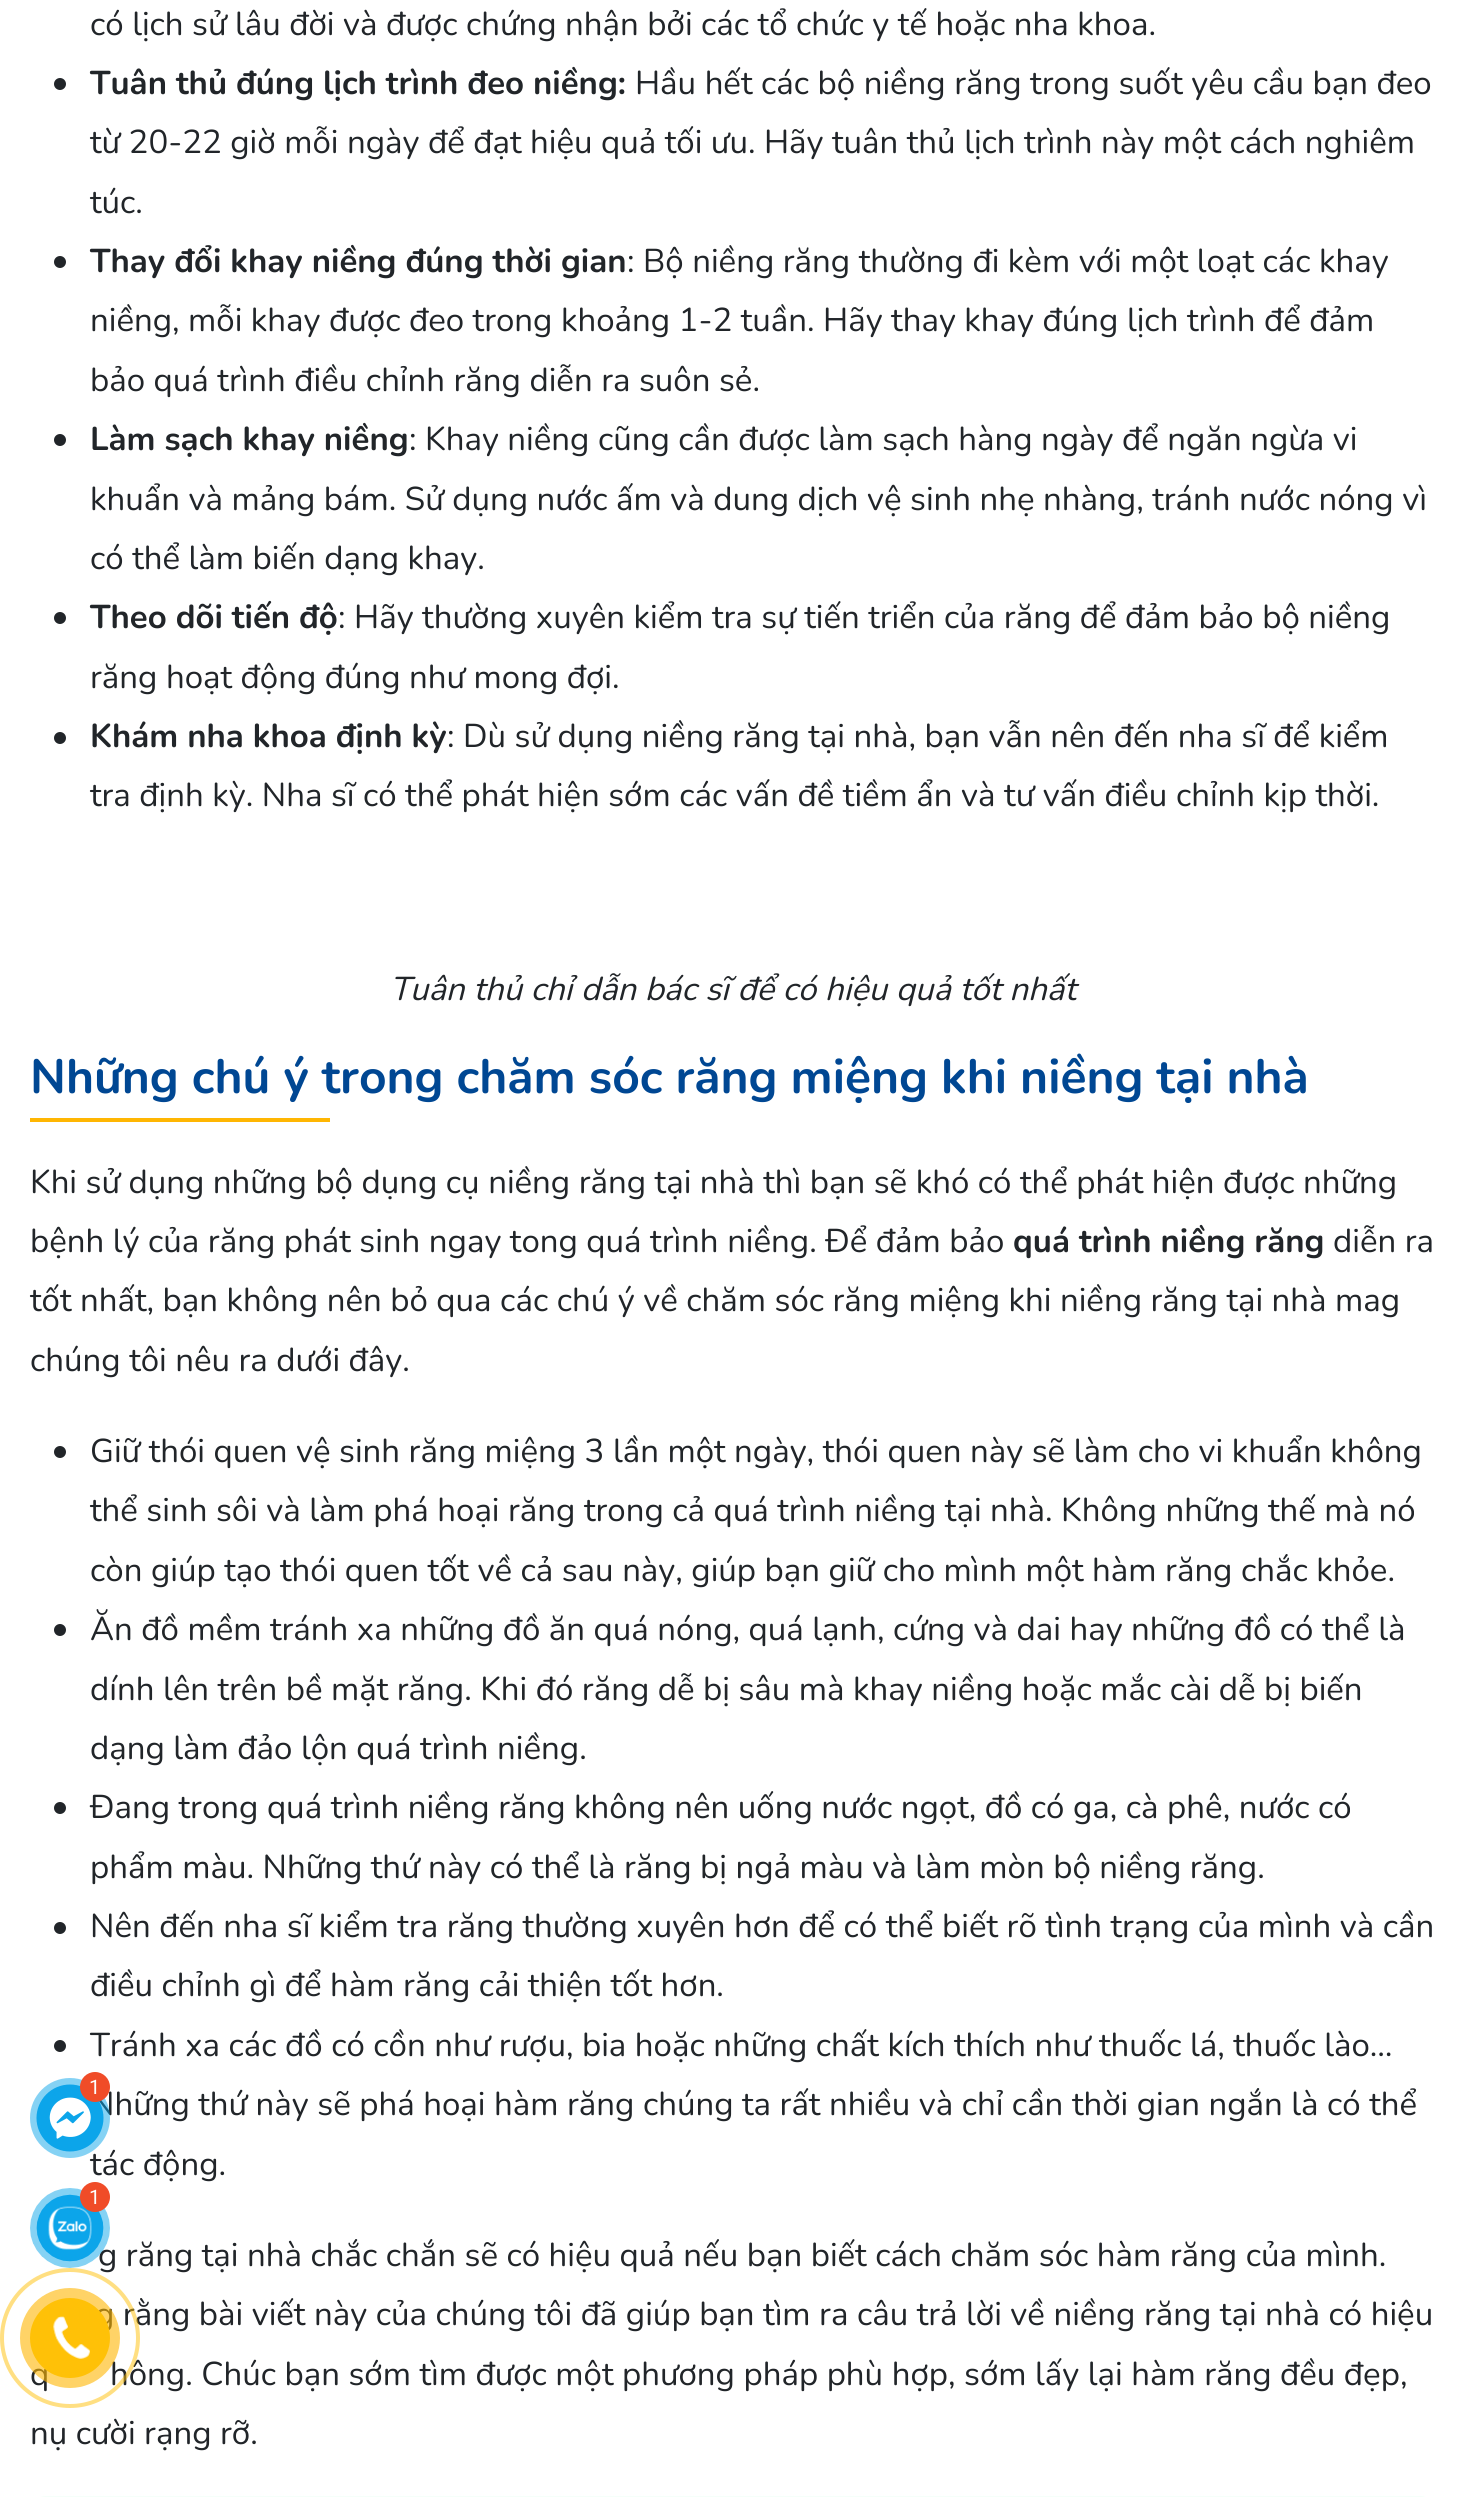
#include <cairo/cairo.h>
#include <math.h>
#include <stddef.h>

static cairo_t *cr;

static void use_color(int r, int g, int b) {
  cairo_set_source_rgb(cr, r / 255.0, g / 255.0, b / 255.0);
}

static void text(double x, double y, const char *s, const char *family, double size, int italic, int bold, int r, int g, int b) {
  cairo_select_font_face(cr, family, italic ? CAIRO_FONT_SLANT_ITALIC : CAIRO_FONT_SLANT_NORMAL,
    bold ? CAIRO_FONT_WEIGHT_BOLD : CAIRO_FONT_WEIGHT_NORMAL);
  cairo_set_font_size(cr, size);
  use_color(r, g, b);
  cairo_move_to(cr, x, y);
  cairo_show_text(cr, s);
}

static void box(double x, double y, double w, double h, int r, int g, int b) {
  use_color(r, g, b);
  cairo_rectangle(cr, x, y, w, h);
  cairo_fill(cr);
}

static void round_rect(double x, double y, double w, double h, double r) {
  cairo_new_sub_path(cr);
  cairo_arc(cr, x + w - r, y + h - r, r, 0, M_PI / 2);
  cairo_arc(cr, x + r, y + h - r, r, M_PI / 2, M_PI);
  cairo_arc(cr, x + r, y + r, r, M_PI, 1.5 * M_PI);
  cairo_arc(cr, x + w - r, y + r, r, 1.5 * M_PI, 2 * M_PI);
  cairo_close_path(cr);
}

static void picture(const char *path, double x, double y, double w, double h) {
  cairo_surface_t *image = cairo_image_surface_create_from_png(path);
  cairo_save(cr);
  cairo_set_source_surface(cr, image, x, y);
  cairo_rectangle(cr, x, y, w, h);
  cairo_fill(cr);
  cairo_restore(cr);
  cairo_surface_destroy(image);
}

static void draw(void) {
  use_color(255, 255, 255);
  cairo_paint(cr);
  use_color(33, 37, 41);
  cairo_arc(cr, 60, 84, 6, 0, 2 * M_PI);
  cairo_fill(cr);
  cairo_arc(cr, 60, 262, 6, 0, 2 * M_PI);
  cairo_fill(cr);
  cairo_arc(cr, 60, 440, 6, 0, 2 * M_PI);
  cairo_fill(cr);
  cairo_arc(cr, 60, 618, 6, 0, 2 * M_PI);
  cairo_fill(cr);
  cairo_arc(cr, 60, 738, 6, 0, 2 * M_PI);
  cairo_fill(cr);
  box(30, 1118, 300, 4, 255, 182, 2);
  use_color(33, 37, 41);
  cairo_arc(cr, 60, 1452, 6, 0, 2 * M_PI);
  cairo_fill(cr);
  cairo_arc(cr, 60, 1630, 6, 0, 2 * M_PI);
  cairo_fill(cr);
  cairo_arc(cr, 60, 1808, 6, 0, 2 * M_PI);
  cairo_fill(cr);
  cairo_arc(cr, 60, 1928, 6, 0, 2 * M_PI);
  cairo_fill(cr);
  cairo_arc(cr, 60, 2046, 6, 0, 2 * M_PI);
  cairo_fill(cr);
  use_color(245, 255, 250);
  round_rect(30, 2496, 1406, 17, 16);
  cairo_fill(cr);
  text(90, 35, "có lịch sử lâu đời và được chứng nhận bởi các tổ chức y tế hoặc nha khoa.", "Nunito", 33, 0, 0, 33, 37, 41);
  text(90, 94, "Tuân thủ đúng lịch trình đeo niềng:", "Nunito", 33, 0, 1, 33, 37, 41);
  text(635, 94, "Hầu hết các bộ niềng răng trong suốt yêu cầu bạn đeo", "Nunito", 33, 0, 0, 33, 37, 41);
  text(90, 153, "từ 20-22 giờ mỗi ngày để đạt hiệu quả tối ưu. Hãy tuân thủ lịch trình này một cách nghiêm", "Nunito", 33, 0, 0, 33, 37, 41);
  text(90, 213, "túc.", "Nunito", 33, 0, 0, 33, 37, 41);
  text(90, 272, "Thay đổi khay niềng đúng thời gian", "Nunito", 33, 0, 1, 33, 37, 41);
  text(627, 272, ": Bộ niềng răng thường đi kèm với một loạt các khay", "Nunito", 33, 0, 0, 33, 37, 41);
  text(90, 331, "niềng, mỗi khay được đeo trong khoảng 1-2 tuần. Hãy thay khay đúng lịch trình để đảm", "Nunito", 33, 0, 0, 33, 37, 41);
  text(90, 391, "bảo quá trình điều chỉnh răng diễn ra suôn sẻ.", "Nunito", 33, 0, 0, 33, 37, 41);
  text(90, 450, "Làm sạch khay niềng", "Nunito", 33, 0, 1, 33, 37, 41);
  text(409, 450, ": Khay niềng cũng cần được làm sạch hàng ngày để ngăn ngừa vi", "Nunito", 33, 0, 0, 33, 37, 41);
  text(90, 510, "khuẩn và mảng bám. Sử dụng nước ấm và dung dịch vệ sinh nhẹ nhàng, tránh nước nóng vì", "Nunito", 33, 0, 0, 33, 37, 41);
  text(90, 569, "có thể làm biến dạng khay.", "Nunito", 33, 0, 0, 33, 37, 41);
  text(90, 628, "Theo dõi tiến độ", "Nunito", 33, 0, 1, 33, 37, 41);
  text(338, 628, ": Hãy thường xuyên kiểm tra sự tiến triển của răng để đảm bảo bộ niềng", "Nunito", 33, 0, 0, 33, 37, 41);
  text(90, 688, "răng hoạt động đúng như mong đợi.", "Nunito", 33, 0, 0, 33, 37, 41);
  text(90, 747, "Khám nha khoa định kỳ", "Nunito", 33, 0, 1, 33, 37, 41);
  text(447, 747, ": Dù sử dụng niềng răng tại nhà, bạn vẫn nên đến nha sĩ để kiểm", "Nunito", 33, 0, 0, 33, 37, 41);
  text(90, 806, "tra định kỳ. Nha sĩ có thể phát hiện sớm các vấn đề tiềm ẩn và tư vấn điều chỉnh kịp thời.", "Nunito", 33, 0, 0, 33, 37, 41);
  text(390, 1000, "Tuân thủ chỉ dẫn bác sĩ để có hiệu quả tốt nhất", "Nunito", 33, 1, 0, 33, 37, 41);
  text(30, 1093, "Những chú ý trong chăm sóc răng miệng khi niềng tại nhà", "Nunito", 48, 0, 1, 0, 71, 147);
  text(30, 1193, "Khi sử dụng những bộ dụng cụ niềng răng tại nhà thì bạn sẽ khó có thể phát hiện được những", "Nunito", 33, 0, 0, 33, 37, 41);
  text(30, 1252, "bệnh lý của răng phát sinh ngay tong quá trình niềng. Để đảm bảo", "Nunito", 33, 0, 0, 33, 37, 41);
  text(1013, 1252, "quá trình niềng răng", "Nunito", 33, 0, 1, 33, 37, 41);
  text(1333, 1252, "diễn ra", "Nunito", 33, 0, 0, 33, 37, 41);
  text(30, 1311, "tốt nhất, bạn không nên bỏ qua các chú ý về chăm sóc răng miệng khi niềng răng tại nhà mag", "Nunito", 33, 0, 0, 33, 37, 41);
  text(30, 1371, "chúng tôi nêu ra dưới đây.", "Nunito", 33, 0, 0, 33, 37, 41);
  text(90, 1462, "Giữ thói quen vệ sinh răng miệng 3 lần một ngày, thói quen này sẽ làm cho vi khuẩn không", "Nunito", 33, 0, 0, 33, 37, 41);
  text(90, 1521, "thể sinh sôi và làm phá hoại răng trong cả quá trình niềng tại nhà. Không những thế mà nó", "Nunito", 33, 0, 0, 33, 37, 41);
  text(90, 1581, "còn giúp tạo thói quen tốt về cả sau này, giúp bạn giữ cho mình một hàm răng chắc khỏe.", "Nunito", 33, 0, 0, 33, 37, 41);
  text(90, 1640, "Ăn đồ mềm tránh xa những đồ ăn quá nóng, quá lạnh, cứng và dai hay những đồ có thể là", "Nunito", 33, 0, 0, 33, 37, 41);
  text(90, 1700, "dính lên trên bề mặt răng. Khi đó răng dễ bị sâu mà khay niềng hoặc mắc cài dễ bị biến", "Nunito", 33, 0, 0, 33, 37, 41);
  text(90, 1759, "dạng làm đảo lộn quá trình niềng.", "Nunito", 33, 0, 0, 33, 37, 41);
  text(90, 1818, "Đang trong quá trình niềng răng không nên uống nước ngọt, đồ có ga, cà phê, nước có", "Nunito", 33, 0, 0, 33, 37, 41);
  text(90, 1878, "phẩm màu. Những thứ này có thể là răng bị ngả màu và làm mòn bộ niềng răng.", "Nunito", 33, 0, 0, 33, 37, 41);
  text(90, 1937, "Nên đến nha sĩ kiểm tra răng thường xuyên hơn để có thể biết rõ tình trạng của mình và cần", "Nunito", 33, 0, 0, 33, 37, 41);
  text(90, 1996, "điều chỉnh gì để hàm răng cải thiện tốt hơn.", "Nunito", 33, 0, 0, 33, 37, 41);
  text(90, 2056, "Tránh xa các đồ có cồn như rượu, bia hoặc những chất kích thích như thuốc lá, thuốc lào…", "Nunito", 33, 0, 0, 33, 37, 41);
  text(90, 2115, "Những thứ này sẽ phá hoại hàm răng chúng ta rất nhiều và chỉ cần thời gian ngắn là có thể", "Nunito", 33, 0, 0, 33, 37, 41);
  text(90, 2175, "tác động.", "Nunito", 33, 0, 0, 33, 37, 41);
  text(98, 2266, "g răng tại nhà chắc chắn sẽ có hiệu quả nếu bạn biết cách chăm sóc hàm răng của mình.", "Nunito", 33, 0, 0, 33, 37, 41);
  text(95, 2325, "g rằng bài viết này của chúng tôi đã giúp bạn tìm ra câu trả lời về niềng răng tại nhà có hiệu", "Nunito", 33, 0, 0, 33, 37, 41);
  text(30, 2385, "q", "Nunito", 33, 0, 0, 33, 37, 41);
  text(110, 2385, "hông. Chúc bạn sớm tìm được một phương pháp phù hợp, sớm lấy lại hàm răng đều đẹp,", "Nunito", 33, 0, 0, 33, 37, 41);
  text(30, 2444, "nụ cười rạng rỡ.", "Nunito", 33, 0, 0, 33, 37, 41);
  picture("img_01.png", 30, 2078, 80, 80);
  use_color(240, 76, 40);
  cairo_arc(cr, 95, 2087, 15, 0, 2 * M_PI);
  cairo_fill(cr);
  text(89, 2094, "1", "Roboto", 20, 0, 0, 255, 255, 255);
  picture("img_02.png", 30, 2188, 80, 80);
  use_color(240, 76, 40);
  cairo_arc(cr, 95, 2197, 15, 0, 2 * M_PI);
  cairo_fill(cr);
  text(89, 2204, "1", "Roboto", 20, 0, 0, 255, 255, 255);
  cairo_new_path(cr);
  cairo_arc(cr, 70, 2338, 68, 0, 2 * M_PI);
  cairo_set_source_rgba(cr, 1, 0.757, 0.027, 0.5);
  cairo_set_line_width(cr, 4);
  cairo_stroke(cr);
  cairo_set_source_rgba(cr, 1, 0.714, 0.008, 0.6);
  cairo_arc(cr, 70, 2338, 50, 0, 2 * M_PI);
  cairo_fill(cr);
  use_color(255, 193, 7);
  cairo_arc(cr, 70, 2338, 40, 0, 2 * M_PI);
  cairo_fill(cr);
  picture("img_03.png", 53, 2316, 37, 43);
}

int main(void) {
  cairo_surface_t *surface = cairo_image_surface_create(CAIRO_FORMAT_RGB24, 1465, 2497);
  cr = cairo_create(surface);
  cairo_font_options_t *options = cairo_font_options_create();
  cairo_font_options_set_hint_metrics(options, CAIRO_HINT_METRICS_OFF);
  cairo_font_options_set_hint_style(options, CAIRO_HINT_STYLE_NONE);
  cairo_set_font_options(cr, options);
  cairo_set_miter_limit(cr, 4);
  draw();
  cairo_surface_write_to_png(surface, "out.png");
  cairo_font_options_destroy(options);
  cairo_destroy(cr);
  cairo_surface_destroy(surface);
  return 0;
}
